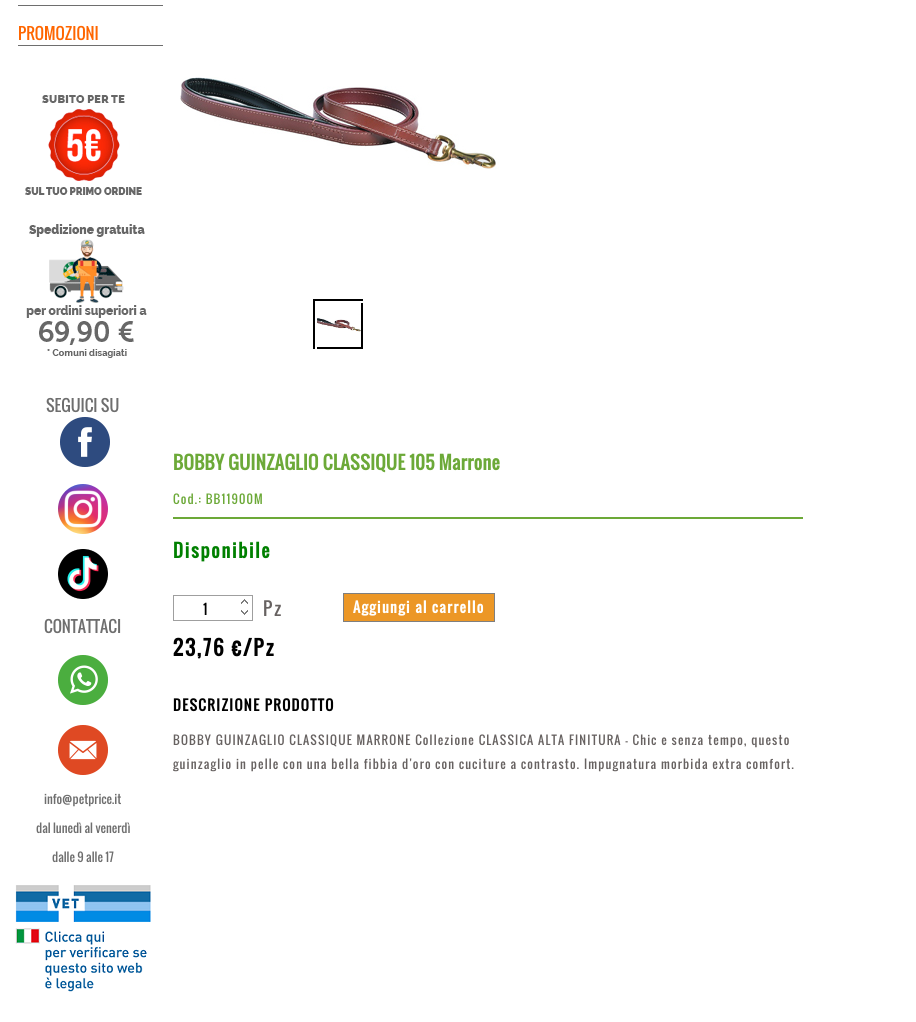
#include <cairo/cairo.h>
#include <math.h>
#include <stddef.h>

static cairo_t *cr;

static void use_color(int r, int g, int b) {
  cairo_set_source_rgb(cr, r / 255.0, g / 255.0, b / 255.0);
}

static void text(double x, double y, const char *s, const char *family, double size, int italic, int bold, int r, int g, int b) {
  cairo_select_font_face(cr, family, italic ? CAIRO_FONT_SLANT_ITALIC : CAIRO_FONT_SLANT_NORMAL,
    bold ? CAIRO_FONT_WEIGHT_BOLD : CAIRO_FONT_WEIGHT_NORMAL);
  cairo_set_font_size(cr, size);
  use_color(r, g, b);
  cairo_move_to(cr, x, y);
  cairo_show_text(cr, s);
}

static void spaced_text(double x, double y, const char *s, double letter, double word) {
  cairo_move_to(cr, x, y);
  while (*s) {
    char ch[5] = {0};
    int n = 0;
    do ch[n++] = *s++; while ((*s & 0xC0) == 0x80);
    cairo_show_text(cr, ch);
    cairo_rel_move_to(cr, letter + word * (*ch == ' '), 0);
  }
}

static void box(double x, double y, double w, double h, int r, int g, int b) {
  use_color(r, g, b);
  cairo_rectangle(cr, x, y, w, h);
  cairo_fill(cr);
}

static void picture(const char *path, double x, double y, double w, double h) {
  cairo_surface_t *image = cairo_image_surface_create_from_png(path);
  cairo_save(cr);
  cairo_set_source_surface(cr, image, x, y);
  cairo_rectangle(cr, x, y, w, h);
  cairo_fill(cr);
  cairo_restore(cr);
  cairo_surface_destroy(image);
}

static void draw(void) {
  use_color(255, 255, 255);
  cairo_paint(cr);
  box(18, 5, 146, 1, 110, 110, 110);
  box(18, 45, 146, 1, 110, 110, 110);
  picture("img_01.png", 25, 95, 117, 100);
  picture("img_02.png", 26, 224, 121, 134);
  picture("img_03.png", 60, 417, 50, 50);
  picture("img_04.png", 58, 484, 50, 50);
  picture("img_05.png", 58, 549, 50, 50);
  picture("img_06.png", 58, 655, 50, 50);
  picture("img_07.png", 58, 725, 50, 50);
  picture("img_08.png", 15, 885, 136, 107);
  box(163, 5, 1, 41, 255, 255, 255);
  picture("img_09.png", 180, 77, 319, 93);
  picture("img_10.png", 317, 303, 44, 44);
  cairo_rectangle(cr, 314, 300, 48, 48);
  use_color(0, 0, 0);
  cairo_stroke(cr);
  cairo_save(cr);
  cairo_rectangle(cr, 163, 299, 350, 50);
  cairo_clip(cr);
  cairo_rectangle(cr, 316, 302, 48, 48);
  use_color(255, 255, 255);
  cairo_stroke(cr);
  cairo_restore(cr);
  box(173, 517, 630, 2, 108, 169, 56);
  box(173, 595, 80, 1, 159, 159, 159);
  box(252, 595, 1, 26, 159, 159, 159);
  box(173, 620, 80, 1, 159, 159, 159);
  box(173, 595, 1, 26, 159, 159, 159);
  picture("img_11.png", 241, 599, 7, 5);
  picture("img_12.png", 241, 610, 7, 5);
  use_color(236, 151, 38);
  cairo_rectangle(cr, 343.5, 593.5, 151, 28);
  cairo_fill_preserve(cr);
  use_color(127, 127, 127);
  cairo_set_line_width(cr, 1);
  cairo_stroke(cr);
  text(18, 40, "PROMOZIONI", "Oswald", 16, 0, 0, 255, 102, 0);
  text(46, 412, "SEGUICI SU", "Oswald", 16, 0, 0, 110, 110, 110);
  text(44, 633, "CONTATTACI", "Oswald", 16, 0, 0, 110, 110, 110);
  text(44, 804, "info@petprice.it", "Oswald", 12, 0, 0, 110, 110, 110);
  text(36, 833, "dal lunedì al venerdì", "Oswald", 12, 0, 0, 110, 110, 110);
  text(52, 862, "dalle 9 alle 17", "Oswald", 12, 0, 0, 110, 110, 110);
  cairo_select_font_face(cr, "Oswald", CAIRO_FONT_SLANT_NORMAL, CAIRO_FONT_WEIGHT_BOLD);
  cairo_set_font_size(cr, 18);
  use_color(108, 169, 56);
  spaced_text(173, 470, "BOBBY GUINZAGLIO CLASSIQUE 105 Marrone", 0.35, 0);
  cairo_select_font_face(cr, "Oswald", CAIRO_FONT_SLANT_NORMAL, CAIRO_FONT_WEIGHT_NORMAL);
  cairo_set_font_size(cr, 12);
  spaced_text(173, 504, "Cod.: BB11900M", 1.2, 0);
  cairo_select_font_face(cr, "Oswald", CAIRO_FONT_SLANT_NORMAL, CAIRO_FONT_WEIGHT_BOLD);
  cairo_set_font_size(cr, 18);
  use_color(0, 128, 0);
  spaced_text(173, 558, "Disponibile", 1.75, 0);
  text(203, 615, "1", "Oswald", 14, 0, 0, 0, 0, 0);
  cairo_set_font_size(cr, 18);
  use_color(103, 98, 97);
  spaced_text(263, 616, "Pz", 1.75, 0);
  cairo_select_font_face(cr, "Oswald", CAIRO_FONT_SLANT_NORMAL, CAIRO_FONT_WEIGHT_BOLD);
  cairo_set_font_size(cr, 14);
  use_color(255, 255, 255);
  spaced_text(353, 613, "Aggiungi al carrello", 1.4, 0);
  cairo_set_font_size(cr, 20);
  use_color(0, 0, 0);
  spaced_text(173, 656, "23,76 €/Pz", 2, 0);
  cairo_set_font_size(cr, 14);
  spaced_text(173, 711, "DESCRIZIONE PRODOTTO", 1.4, 0);
  cairo_select_font_face(cr, "Oswald", CAIRO_FONT_SLANT_NORMAL, CAIRO_FONT_WEIGHT_NORMAL);
  cairo_set_font_size(cr, 12);
  use_color(103, 98, 97);
  spaced_text(173, 745, "BOBBY GUINZAGLIO CLASSIQUE MARRONE Collezione CLASSICA ALTA FINITURA - Chic e senza tempo, questo", 1.2, 0);
  spaced_text(173, 769, "guinzaglio in pelle con una bella fibbia d'oro con cuciture a contrasto. Impugnatura morbida extra comfort.", 1.2, 0);
}

int main(void) {
  cairo_surface_t *surface = cairo_image_surface_create(CAIRO_FORMAT_RGB24, 916, 1022);
  cr = cairo_create(surface);
  cairo_font_options_t *options = cairo_font_options_create();
  cairo_font_options_set_hint_metrics(options, CAIRO_HINT_METRICS_OFF);
  cairo_font_options_set_hint_style(options, CAIRO_HINT_STYLE_NONE);
  cairo_set_font_options(cr, options);
  cairo_set_miter_limit(cr, 4);
  draw();
  cairo_surface_write_to_png(surface, "out.png");
  cairo_font_options_destroy(options);
  cairo_destroy(cr);
  cairo_surface_destroy(surface);
  return 0;
}
